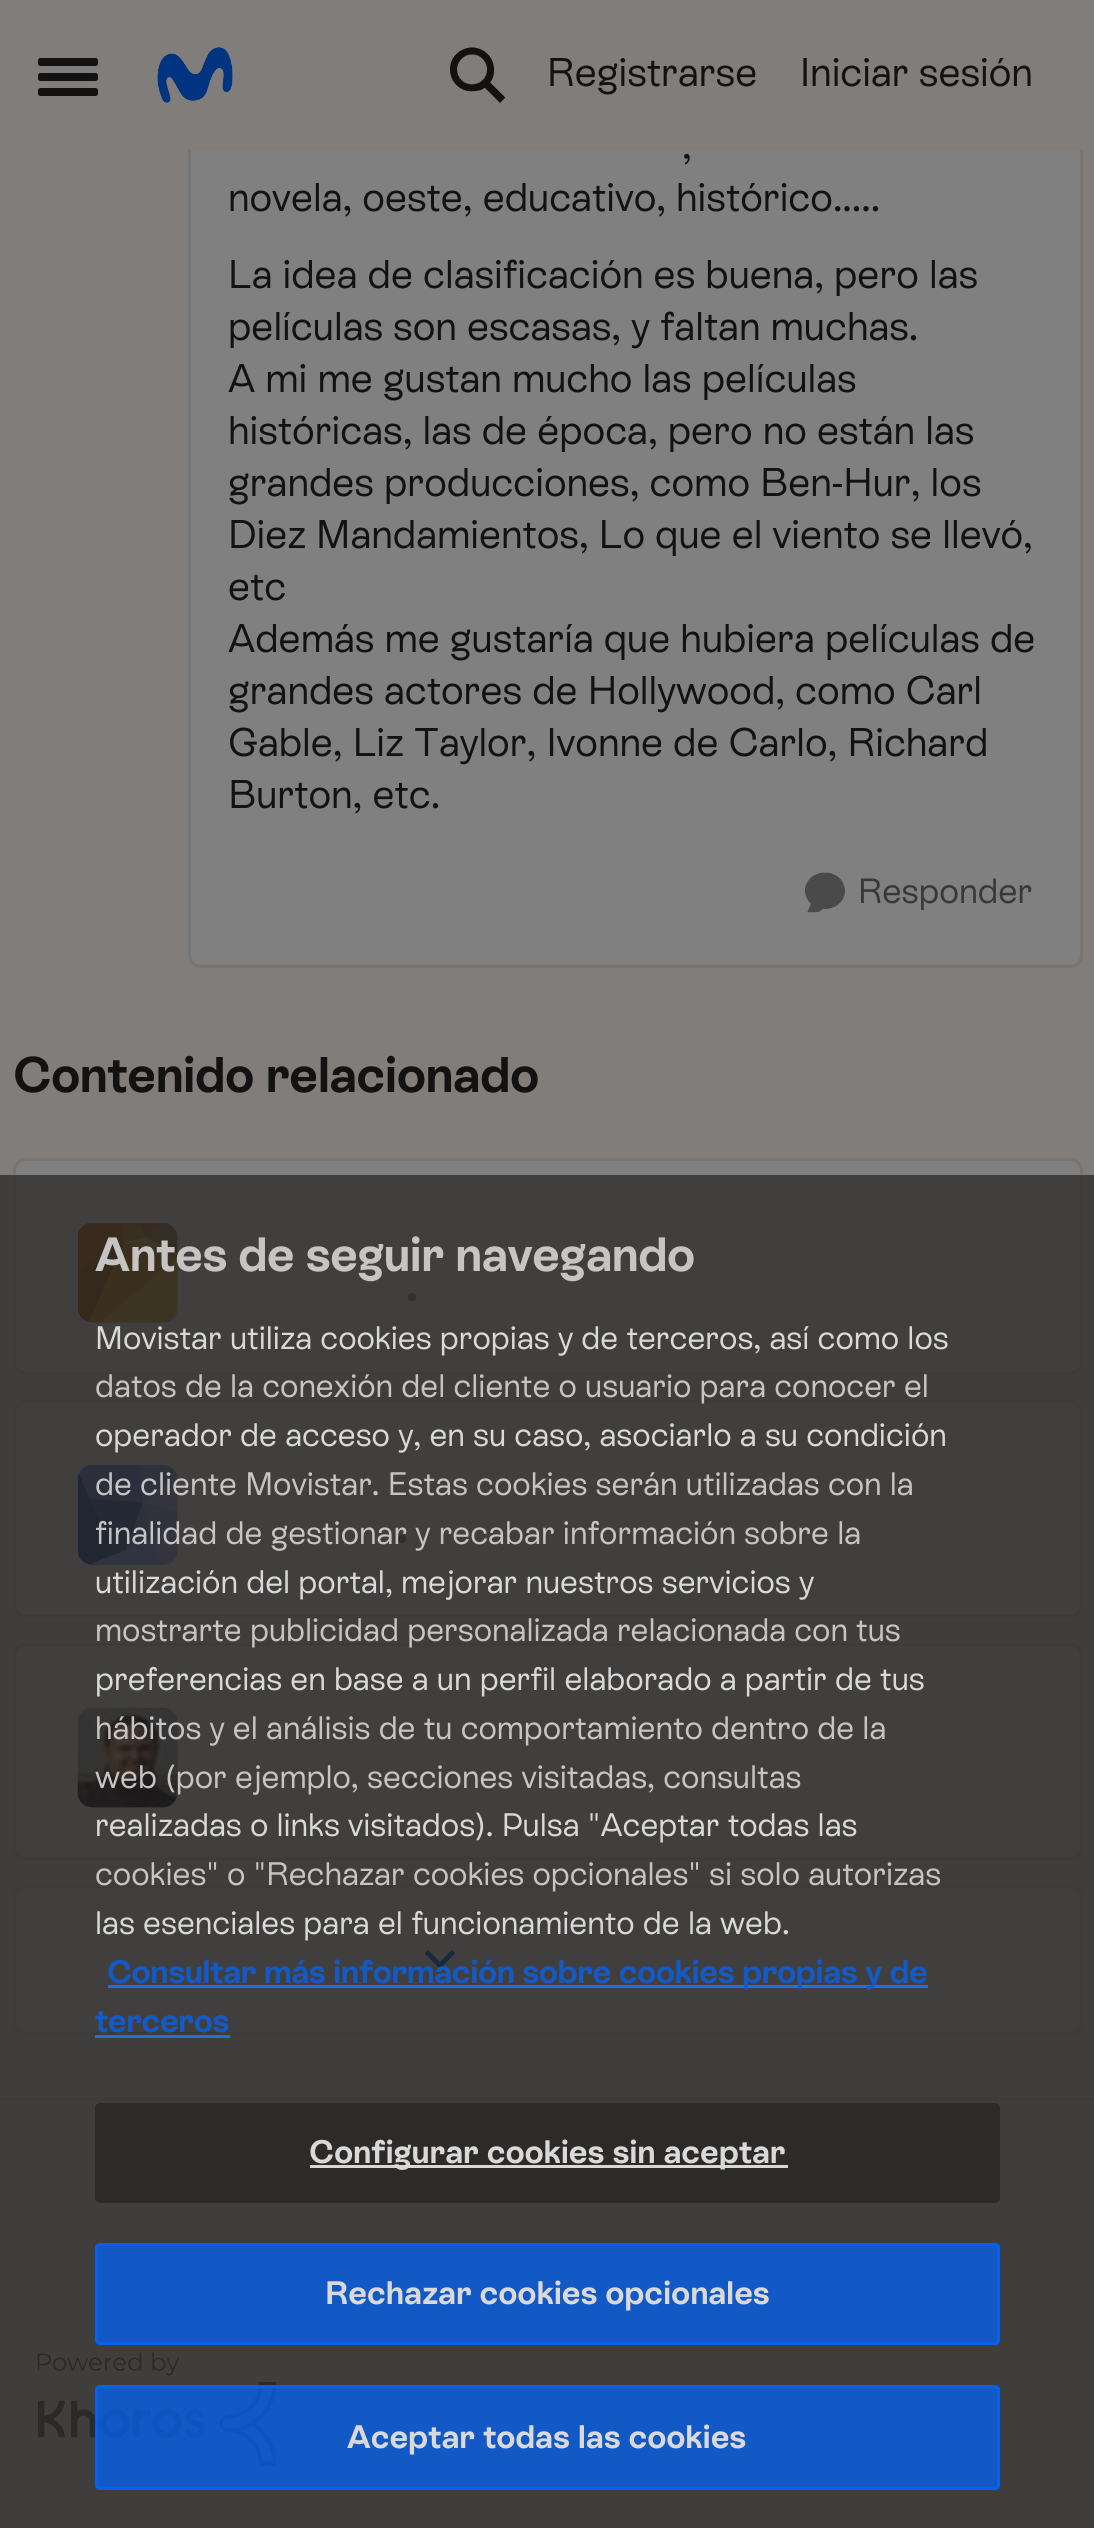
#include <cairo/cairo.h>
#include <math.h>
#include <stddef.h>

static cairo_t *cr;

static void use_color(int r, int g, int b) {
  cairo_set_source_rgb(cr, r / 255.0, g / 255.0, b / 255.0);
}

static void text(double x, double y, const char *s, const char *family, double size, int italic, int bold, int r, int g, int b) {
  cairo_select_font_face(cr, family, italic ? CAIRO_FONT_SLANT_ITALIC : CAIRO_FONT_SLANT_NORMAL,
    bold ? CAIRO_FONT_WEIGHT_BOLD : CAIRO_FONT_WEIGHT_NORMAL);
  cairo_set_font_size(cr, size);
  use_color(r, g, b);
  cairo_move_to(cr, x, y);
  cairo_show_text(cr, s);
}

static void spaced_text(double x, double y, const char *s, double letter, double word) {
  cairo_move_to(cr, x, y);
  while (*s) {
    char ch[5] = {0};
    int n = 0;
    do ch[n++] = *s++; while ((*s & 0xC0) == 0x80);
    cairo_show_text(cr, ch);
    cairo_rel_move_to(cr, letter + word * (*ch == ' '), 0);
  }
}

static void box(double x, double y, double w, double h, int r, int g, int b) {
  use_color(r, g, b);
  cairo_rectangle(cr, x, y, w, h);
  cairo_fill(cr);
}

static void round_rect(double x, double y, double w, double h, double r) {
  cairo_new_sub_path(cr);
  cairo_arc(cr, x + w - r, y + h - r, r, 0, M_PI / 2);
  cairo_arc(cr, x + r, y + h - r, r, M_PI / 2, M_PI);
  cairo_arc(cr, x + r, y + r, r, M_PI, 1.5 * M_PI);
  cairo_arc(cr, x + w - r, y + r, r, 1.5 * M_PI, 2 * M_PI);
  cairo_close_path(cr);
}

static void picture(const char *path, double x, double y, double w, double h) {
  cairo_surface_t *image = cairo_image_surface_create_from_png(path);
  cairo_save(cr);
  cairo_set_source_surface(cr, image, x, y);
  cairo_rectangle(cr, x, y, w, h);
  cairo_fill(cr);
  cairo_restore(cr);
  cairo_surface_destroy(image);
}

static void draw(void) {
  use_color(128, 125, 123);
  cairo_paint(cr);
  use_color(128, 128, 128);
  cairo_new_path(cr);
  cairo_move_to(cr, 188, -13);
  cairo_line_to(cr, 1083, -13);
  cairo_line_to(cr, 1083, 955);
  cairo_curve_to(cr, 1083, 962, 1077, 968, 1070, 968);
  cairo_line_to(cr, 201, 968);
  cairo_curve_to(cr, 194, 968, 188, 962, 188, 955);
  cairo_close_path(cr);
  cairo_fill(cr);
  cairo_new_path(cr);
  cairo_move_to(cr, 189.5, -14.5);
  cairo_line_to(cr, 1081.5, -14.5);
  cairo_line_to(cr, 1081.5, 955);
  cairo_curve_to(cr, 1081.5, 961.5, 1076.5, 966.5, 1070, 966.5);
  cairo_line_to(cr, 201, 966.5);
  cairo_curve_to(cr, 194.5, 966.5, 189.5, 961.5, 189.5, 955);
  cairo_close_path(cr);
  cairo_set_source_rgba(cr, 0, 0, 0, 0.08);
  cairo_set_line_width(cr, 3);
  cairo_stroke(cr);
  box(188, 0, 895, 150, 128, 125, 123);
  use_color(19, 18, 18);
  round_rect(38, 58, 60, 8, 2.5);
  cairo_fill(cr);
  round_rect(38, 73, 60, 8, 2.5);
  cairo_fill(cr);
  round_rect(38, 88, 60, 8, 2.5);
  cairo_fill(cr);
  picture("img_01.png", 157, 47, 76, 56);
  picture("img_02.png", 450, 47, 56, 56);
  picture("img_03.png", 805, 872, 40, 41);
  use_color(128, 128, 128);
  round_rect(13, 1158, 1070, 217, 13);
  cairo_fill(cr);
  round_rect(14.5, 1159.5, 1067, 214, 11.5);
  cairo_set_source_rgba(cr, 0, 0, 0, 0.08);
  cairo_stroke(cr);
  use_color(109, 109, 109);
  round_rect(78, 1223, 100, 100, 15);
  cairo_fill(cr);
  picture("img_04.png", 78, 1223, 100, 100);
  use_color(74, 74, 74);
  cairo_arc(cr, 412, 1297, 4, 0, 2 * M_PI);
  cairo_fill(cr);
  use_color(128, 128, 128);
  round_rect(13, 1400, 1070, 218, 13);
  cairo_fill(cr);
  round_rect(14.5, 1401.5, 1067, 215, 11.5);
  cairo_set_source_rgba(cr, 0, 0, 0, 0.08);
  cairo_stroke(cr);
  use_color(109, 109, 109);
  round_rect(78, 1465, 100, 100, 15);
  cairo_fill(cr);
  picture("img_05.png", 78, 1465, 100, 100);
  use_color(74, 74, 74);
  cairo_arc(cr, 402, 1539, 4, 0, 2 * M_PI);
  cairo_fill(cr);
  use_color(128, 128, 128);
  round_rect(13, 1643, 1070, 217, 13);
  cairo_fill(cr);
  round_rect(14.5, 1644.5, 1067, 214, 11.5);
  cairo_set_source_rgba(cr, 0, 0, 0, 0.08);
  cairo_stroke(cr);
  use_color(109, 109, 109);
  round_rect(78, 1708, 100, 100, 15);
  cairo_fill(cr);
  picture("img_06.png", 77, 1707, 101, 101);
  use_color(74, 74, 74);
  cairo_arc(cr, 412, 1782, 4, 0, 2 * M_PI);
  cairo_fill(cr);
  use_color(128, 128, 128);
  round_rect(13, 1885, 1070, 150, 13);
  cairo_fill(cr);
  round_rect(14.5, 1886.5, 1067, 147, 11.5);
  cairo_set_source_rgba(cr, 0, 0, 0, 0.08);
  cairo_stroke(cr);
  picture("img_07.png", 425, 1950, 30, 19);
  box(0, 2098, 1094, 3, 118, 115, 113);
  picture("img_08.png", 37, 2352, 240, 114);
  cairo_set_source_rgba(cr, 0.149, 0.141, 0.137, 0.7);
  cairo_rectangle(cr, 0, 1175, 1094, 1353);
  cairo_fill(cr);
  box(108, 1985, 820, 3, 38, 110, 217);
  box(95, 2035, 135, 3, 38, 109, 215);
  cairo_set_source_rgba(cr, 0.149, 0.141, 0.137, 0.7);
  round_rect(95, 2103, 905, 100, 5);
  cairo_fill(cr);
  box(310, 2165, 478, 3, 217, 216, 215);
  cairo_set_source_rgba(cr, 0, 0.4, 1, 0.7);
  round_rect(95, 2243, 905, 102, 5);
  cairo_fill(cr);
  round_rect(96.5, 2244.5, 902, 99, 3.5);
  cairo_stroke(cr);
  round_rect(95, 2385, 905, 105, 5);
  cairo_fill(cr);
  round_rect(96.5, 2386.5, 902, 102, 3.5);
  cairo_stroke(cr);
  text(547, 86, "Registrarse", "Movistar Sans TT", 40, 0, 0, 19, 18, 18);
  text(800, 86, "Iniciar sesión", "Movistar Sans TT", 40, 0, 0, 19, 18, 18);
  text(682, 159, ",", "Movistar Sans TT", 40, 0, 0, 19, 18, 18);
  text(228, 211, "novela, oeste, educativo, histórico.....", "Movistar Sans TT", 40, 0, 0, 19, 18, 18);
  text(228, 288, "La idea de clasificación es buena, pero las", "Movistar Sans TT", 40, 0, 0, 19, 18, 18);
  text(228, 340, "películas son escasas, y faltan muchas.", "Movistar Sans TT", 40, 0, 0, 19, 18, 18);
  text(228, 392, "A mi me gustan mucho las películas", "Movistar Sans TT", 40, 0, 0, 19, 18, 18);
  text(228, 444, "históricas, las de época, pero no están las", "Movistar Sans TT", 40, 0, 0, 19, 18, 18);
  text(228, 496, "grandes producciones, como Ben-Hur, los", "Movistar Sans TT", 40, 0, 0, 19, 18, 18);
  text(228, 548, "Diez Mandamientos, Lo que el viento se llevó,", "Movistar Sans TT", 40, 0, 0, 19, 18, 18);
  text(228, 600, "etc", "Movistar Sans TT", 40, 0, 0, 19, 18, 18);
  text(228, 652, "Además me gustaría que hubiera películas de", "Movistar Sans TT", 40, 0, 0, 19, 18, 18);
  text(228, 704, "grandes actores de Hollywood, como Carl", "Movistar Sans TT", 40, 0, 0, 19, 18, 18);
  text(228, 756, "Gable, Liz Taylor, Ivonne de Carlo, Richard", "Movistar Sans TT", 40, 0, 0, 19, 18, 18);
  text(228, 808, "Burton, etc.", "Movistar Sans TT", 40, 0, 0, 19, 18, 18);
  text(858, 903, "Responder", "Movistar Sans TT", 35, 0, 0, 56, 56, 56);
  text(13, 1092, "Contenido relacionado", "Movistar Sans TT", 50, 0, 1, 19, 18, 18);
  text(95, 1271, "Antes de seguir navegando", "Movistar Sans TT", 48, 0, 1, 198, 197, 196);
  text(95, 1349, "Movistar utiliza cookies propias y de terceros, así como los", "Movistar Sans TT", 32.5, 0, 0, 217, 217, 217);
  text(95, 1397, "datos de la conexión del cliente o usuario para conocer el", "Movistar Sans TT", 32.5, 0, 0, 198, 197, 196);
  text(95, 1446, "operador de acceso y, en su caso, asociarlo a su condición", "Movistar Sans TT", 32.5, 0, 0, 217, 217, 217);
  text(95, 1495, "de cliente Movistar. Estas cookies serán utilizadas con la", "Movistar Sans TT", 32.5, 0, 0, 198, 197, 196);
  text(95, 1544, "finalidad de gestionar y recabar información sobre la", "Movistar Sans TT", 32.5, 0, 0, 198, 197, 196);
  text(95, 1593, "utilización del portal, mejorar nuestros servicios y", "Movistar Sans TT", 32.5, 0, 0, 217, 217, 217);
  text(95, 1641, "mostrarte publicidad personalizada relacionada con tus", "Movistar Sans TT", 32.5, 0, 0, 198, 197, 196);
  text(95, 1690, "preferencias en base a un perfil elaborado a partir de tus", "Movistar Sans TT", 32.5, 0, 0, 217, 217, 217);
  text(95, 1739, "hábitos y el análisis de tu comportamiento dentro de la", "Movistar Sans TT", 32.5, 0, 0, 198, 197, 196);
  text(95, 1788, "web (por ejemplo, secciones visitadas, consultas", "Movistar Sans TT", 32.5, 0, 0, 198, 197, 196);
  text(95, 1836, "realizadas o links visitados). Pulsa \"Aceptar todas las", "Movistar Sans TT", 32.5, 0, 0, 217, 217, 217);
  text(95, 1885, "cookies\" o \"Rechazar cookies opcionales\" si solo autorizas", "Movistar Sans TT", 32.5, 0, 0, 198, 197, 196);
  text(95, 1934, "las esenciales para el funcionamiento de la web.", "Movistar Sans TT", 32.5, 0, 0, 217, 217, 217);
  text(107, 1983, "Consultar más información sobre cookies propias y de", "Movistar Sans TT", 32.5, 0, 1, 19, 90, 198);
  text(95, 2032, "terceros", "Movistar Sans TT", 32.5, 0, 1, 19, 90, 198);
  use_color(217, 217, 217);
  spaced_text(309, 2163, "Configurar cookies sin aceptar", 0.3, 0);
  spaced_text(325, 2304, "Rechazar cookies opcionales", 0.3, 0);
  spaced_text(347, 2448, "Aceptar todas las cookies", 0.3, 0);
}

int main(void) {
  cairo_surface_t *surface = cairo_image_surface_create(CAIRO_FORMAT_RGB24, 1094, 2528);
  cr = cairo_create(surface);
  cairo_font_options_t *options = cairo_font_options_create();
  cairo_font_options_set_hint_metrics(options, CAIRO_HINT_METRICS_OFF);
  cairo_font_options_set_hint_style(options, CAIRO_HINT_STYLE_NONE);
  cairo_set_font_options(cr, options);
  cairo_set_miter_limit(cr, 4);
  draw();
  cairo_surface_write_to_png(surface, "out.png");
  cairo_font_options_destroy(options);
  cairo_destroy(cr);
  cairo_surface_destroy(surface);
  return 0;
}
